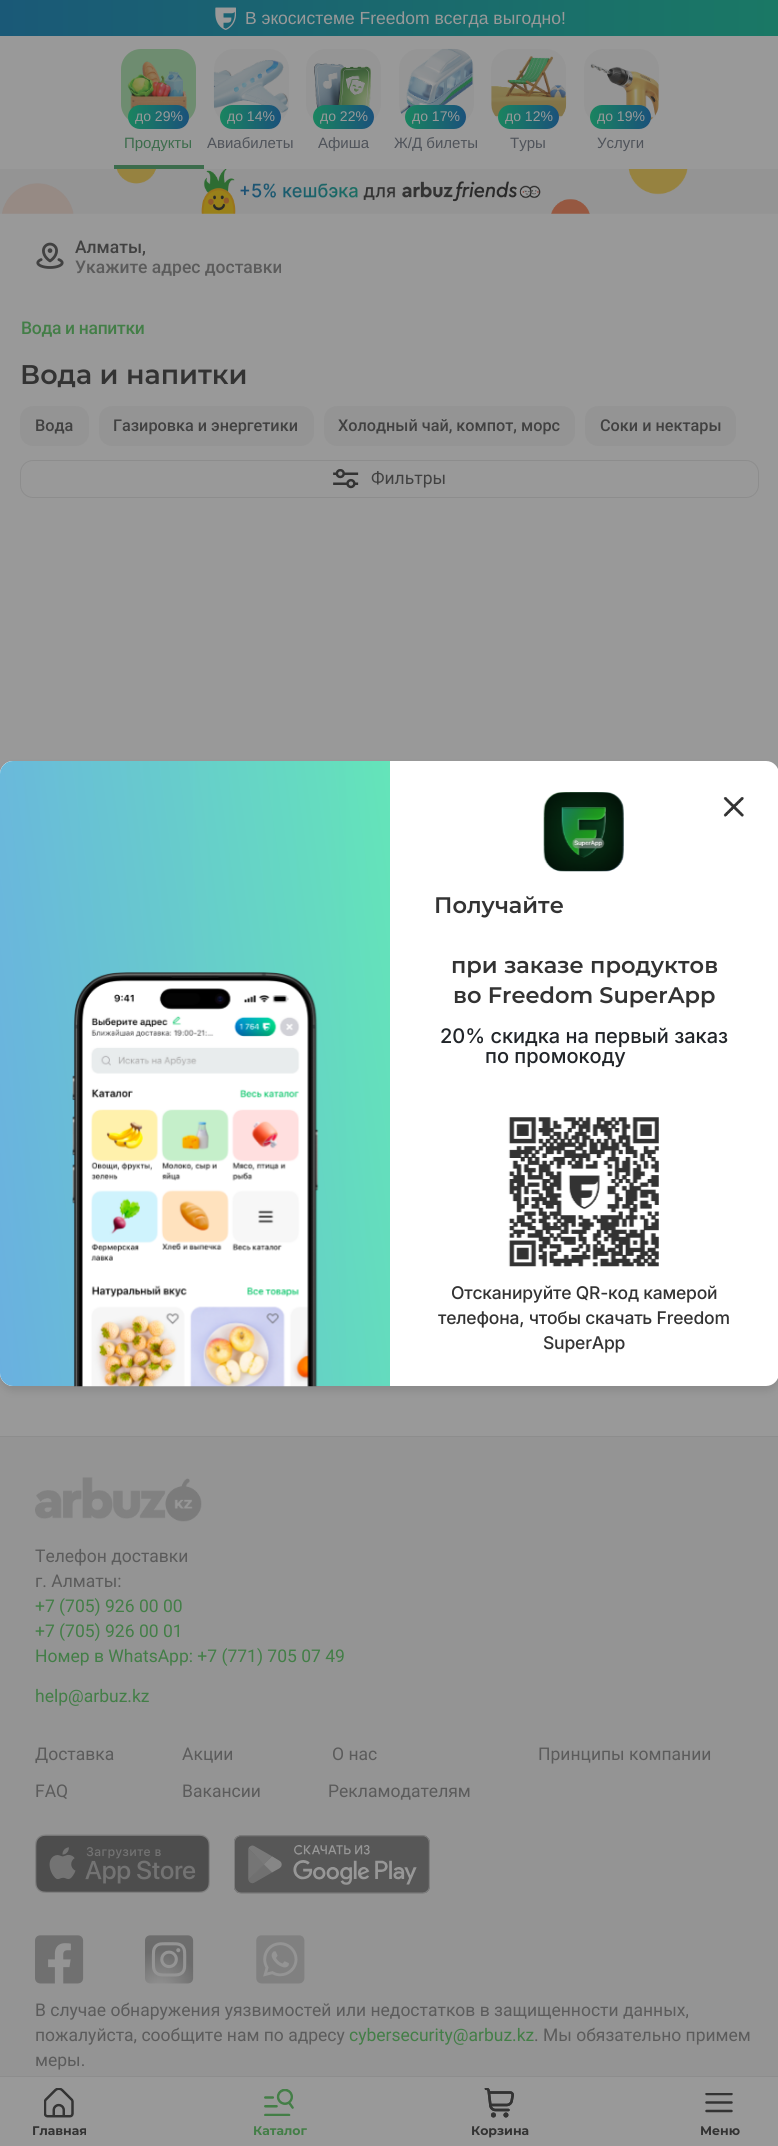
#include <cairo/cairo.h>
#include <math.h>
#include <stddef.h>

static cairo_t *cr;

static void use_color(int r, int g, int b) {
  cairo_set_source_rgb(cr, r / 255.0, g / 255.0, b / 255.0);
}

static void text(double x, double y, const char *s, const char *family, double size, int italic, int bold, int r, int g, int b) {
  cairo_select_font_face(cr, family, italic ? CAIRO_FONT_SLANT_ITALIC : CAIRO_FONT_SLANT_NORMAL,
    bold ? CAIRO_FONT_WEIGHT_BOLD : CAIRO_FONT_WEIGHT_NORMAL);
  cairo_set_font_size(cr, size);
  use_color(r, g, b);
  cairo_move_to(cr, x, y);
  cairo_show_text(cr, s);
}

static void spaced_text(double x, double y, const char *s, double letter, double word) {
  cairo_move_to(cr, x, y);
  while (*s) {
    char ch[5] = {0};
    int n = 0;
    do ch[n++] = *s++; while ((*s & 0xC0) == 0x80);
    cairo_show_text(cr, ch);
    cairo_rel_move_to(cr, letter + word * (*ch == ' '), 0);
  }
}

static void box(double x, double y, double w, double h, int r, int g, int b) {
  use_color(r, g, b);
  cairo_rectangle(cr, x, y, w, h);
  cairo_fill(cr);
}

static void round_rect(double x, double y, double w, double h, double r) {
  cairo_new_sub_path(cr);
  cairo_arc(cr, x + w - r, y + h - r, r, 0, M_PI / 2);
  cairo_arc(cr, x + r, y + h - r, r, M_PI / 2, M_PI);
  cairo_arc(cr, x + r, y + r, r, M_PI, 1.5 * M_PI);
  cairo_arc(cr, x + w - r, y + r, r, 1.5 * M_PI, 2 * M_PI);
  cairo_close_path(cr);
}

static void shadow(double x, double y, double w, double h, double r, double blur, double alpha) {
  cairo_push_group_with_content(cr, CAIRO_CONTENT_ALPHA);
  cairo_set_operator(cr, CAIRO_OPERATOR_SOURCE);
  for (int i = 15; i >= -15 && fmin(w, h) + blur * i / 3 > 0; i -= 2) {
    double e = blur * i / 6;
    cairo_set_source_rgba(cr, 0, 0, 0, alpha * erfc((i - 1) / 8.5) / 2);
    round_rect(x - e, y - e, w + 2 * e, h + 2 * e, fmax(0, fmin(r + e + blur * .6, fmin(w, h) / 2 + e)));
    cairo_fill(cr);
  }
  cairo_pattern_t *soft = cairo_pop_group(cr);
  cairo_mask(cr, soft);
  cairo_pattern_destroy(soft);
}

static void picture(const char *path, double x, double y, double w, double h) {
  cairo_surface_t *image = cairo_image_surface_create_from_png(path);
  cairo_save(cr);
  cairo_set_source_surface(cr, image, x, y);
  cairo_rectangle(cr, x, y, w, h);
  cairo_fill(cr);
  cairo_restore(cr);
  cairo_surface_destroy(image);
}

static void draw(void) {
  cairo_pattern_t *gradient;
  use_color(153, 153, 153);
  cairo_paint(cr);
  gradient = cairo_pattern_create_linear(0, 18, 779, 18);
  cairo_pattern_add_color_stop_rgba(gradient, 0, 0.102, 0.349, 0.467, 1);
  cairo_pattern_add_color_stop_rgba(gradient, 1, 0.102, 0.471, 0.396, 1);
  cairo_set_source(cr, gradient);
  cairo_pattern_destroy(gradient);
  cairo_rectangle(cr, 0, 0, 778, 36);
  cairo_fill(cr);
  picture("img_01.png", 215, 7, 21, 23);
  use_color(110, 140, 112);
  round_rect(121, 49, 75, 75, 20);
  cairo_fill(cr);
  picture("img_02.png", 127, 61, 60, 50);
  gradient = cairo_pattern_create_linear(128, 117, 189, 117);
  cairo_pattern_add_color_stop_rgba(gradient, 0, 0.102, 0.518, 0.373, 1);
  cairo_pattern_add_color_stop_rgba(gradient, 1, 0.102, 0.318, 0.482, 1);
  cairo_set_source(cr, gradient);
  cairo_pattern_destroy(gradient);
  round_rect(128, 105, 61, 24, 12);
  cairo_fill(cr);
  box(114, 165, 90, 4, 60, 108, 76);
  use_color(149, 149, 149);
  round_rect(214, 49, 75, 75, 20);
  cairo_fill(cr);
  picture("img_03.png", 213, 60, 76, 53);
  gradient = cairo_pattern_create_linear(220, 117, 281, 117);
  cairo_pattern_add_color_stop_rgba(gradient, 0, 0.102, 0.518, 0.373, 1);
  cairo_pattern_add_color_stop_rgba(gradient, 1, 0.102, 0.318, 0.482, 1);
  cairo_set_source(cr, gradient);
  cairo_pattern_destroy(gradient);
  round_rect(220, 105, 61, 24, 12);
  cairo_fill(cr);
  use_color(149, 149, 149);
  round_rect(306, 49, 75, 75, 20);
  cairo_fill(cr);
  picture("img_04.png", 314, 63, 57, 46);
  gradient = cairo_pattern_create_linear(313, 117, 374, 117);
  cairo_pattern_add_color_stop_rgba(gradient, 0, 0.102, 0.518, 0.373, 1);
  cairo_pattern_add_color_stop_rgba(gradient, 1, 0.102, 0.318, 0.482, 1);
  cairo_set_source(cr, gradient);
  cairo_pattern_destroy(gradient);
  round_rect(313, 105, 61, 24, 12);
  cairo_fill(cr);
  use_color(149, 149, 149);
  round_rect(399, 49, 75, 75, 20);
  cairo_fill(cr);
  picture("img_05.png", 400, 48, 73, 66);
  gradient = cairo_pattern_create_linear(405, 117, 466, 117);
  cairo_pattern_add_color_stop_rgba(gradient, 0, 0.102, 0.518, 0.373, 1);
  cairo_pattern_add_color_stop_rgba(gradient, 1, 0.102, 0.318, 0.482, 1);
  cairo_set_source(cr, gradient);
  cairo_pattern_destroy(gradient);
  round_rect(405, 105, 61, 24, 12);
  cairo_fill(cr);
  use_color(149, 149, 149);
  round_rect(491, 49, 75, 75, 20);
  cairo_fill(cr);
  picture("img_06.png", 491, 56, 76, 61);
  gradient = cairo_pattern_create_linear(498, 117, 559, 117);
  cairo_pattern_add_color_stop_rgba(gradient, 0, 0.102, 0.518, 0.373, 1);
  cairo_pattern_add_color_stop_rgba(gradient, 1, 0.102, 0.318, 0.482, 1);
  cairo_set_source(cr, gradient);
  cairo_pattern_destroy(gradient);
  round_rect(498, 105, 61, 24, 12);
  cairo_fill(cr);
  use_color(149, 149, 149);
  round_rect(584, 49, 75, 75, 20);
  cairo_fill(cr);
  picture("img_07.png", 590, 63, 69, 58);
  gradient = cairo_pattern_create_linear(590, 117, 651, 117);
  cairo_pattern_add_color_stop_rgba(gradient, 0, 0.102, 0.518, 0.373, 1);
  cairo_pattern_add_color_stop_rgba(gradient, 1, 0.102, 0.318, 0.482, 1);
  cairo_set_source(cr, gradient);
  cairo_pattern_destroy(gradient);
  round_rect(590, 105, 61, 24, 12);
  cairo_fill(cr);
  picture("img_08.png", 0, 169, 778, 45);
  picture("img_09.png", 36, 242, 28, 27);
  use_color(148, 148, 148);
  round_rect(20, 406, 69, 40, 13);
  cairo_fill(cr);
  round_rect(99, 406, 215, 40, 13);
  cairo_fill(cr);
  round_rect(324, 406, 251, 40, 13);
  cairo_fill(cr);
  round_rect(585, 406, 151, 40, 13);
  cairo_fill(cr);
  round_rect(20.5, 460.5, 738, 37, 12.5);
  use_color(141, 141, 141);
  cairo_set_line_width(cr, 1);
  cairo_stroke(cr);
  picture("img_10.png", 333, 469, 26, 20);
  use_color(0, 0, 0);
  shadow(0, 766, 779, 625, 13, 4, 0.1);
  use_color(255, 255, 255);
  round_rect(0, 761, 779, 625, 13);
  cairo_fill(cr);
  gradient = cairo_pattern_create_linear(0, 1074, 390, 1074);
  cairo_pattern_add_color_stop_rgba(gradient, 0, 0.831, 0.945, 1, 1);
  cairo_pattern_add_color_stop_rgba(gradient, 1, 0.784, 0.965, 0.91, 1);
  cairo_set_source(cr, gradient);
  cairo_pattern_destroy(gradient);
  cairo_new_path(cr);
  cairo_move_to(cr, 13, 761);
  cairo_line_to(cr, 390, 761);
  cairo_line_to(cr, 390, 1386);
  cairo_line_to(cr, 13, 1386);
  cairo_curve_to(cr, 6, 1386, 0, 1380, 0, 1373);
  cairo_line_to(cr, 0, 774);
  cairo_curve_to(cr, 0, 767, 6, 761, 13, 761);
  cairo_close_path(cr);
  cairo_fill(cr);
  gradient = cairo_pattern_create_linear(435, 1040, -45, 1108);
  cairo_pattern_add_color_stop_rgba(gradient, 0, 0.004, 0.831, 0.541, 0.5);
  cairo_pattern_add_color_stop_rgba(gradient, 1, 0, 0.435, 0.761, 0.5);
  cairo_set_source(cr, gradient);
  cairo_pattern_destroy(gradient);
  cairo_new_path(cr);
  cairo_move_to(cr, 13, 761);
  cairo_line_to(cr, 390, 761);
  cairo_line_to(cr, 390, 1386);
  cairo_line_to(cr, 13, 1386);
  cairo_curve_to(cr, 6, 1386, 0, 1380, 0, 1373);
  cairo_line_to(cr, 0, 774);
  cairo_curve_to(cr, 0, 767, 6, 761, 13, 761);
  cairo_close_path(cr);
  cairo_fill(cr);
  picture("img_11.png", 72, 972, 247, 415);
  picture("img_12.png", 543, 792, 81, 80);
  picture("img_13.png", 723, 797, 21, 20);
  picture("img_14.png", 508, 1117, 151, 150);
  box(0, 1437, 778, 639, 148, 148, 148);
  box(0, 1436, 778, 1, 141, 141, 141);
  picture("img_15.png", 35, 1477, 167, 45);
  picture("img_16.png", 35, 1834, 175, 59);
  picture("img_17.png", 234, 1835, 196, 59);
  picture("img_18.png", 35, 1935, 49, 49);
  picture("img_19.png", 145, 1935, 49, 49);
  picture("img_20.png", 256, 1935, 49, 49);
  box(0, 2076, 778, 1, 141, 141, 141);
  picture("img_21.png", 44, 2088, 30, 30);
  picture("img_22.png", 264, 2089, 30, 27);
  picture("img_23.png", 484, 2088, 30, 30);
  cairo_new_path(cr);
  cairo_move_to(cr, 706.5, 2111);
  cairo_line_to(cr, 731.5, 2111);
  cairo_move_to(cr, 706.5, 2102.5);
  cairo_line_to(cr, 731.5, 2102.5);
  use_color(51, 51, 51);
  cairo_set_line_width(cr, 2.5);
  cairo_set_line_cap(cr, CAIRO_LINE_CAP_ROUND);
  cairo_stroke(cr);
  cairo_save(cr);
  cairo_rectangle(cr, 705, 2093, 29, 20);
  cairo_clip(cr);
  cairo_new_path(cr);
  cairo_move_to(cr, 706.5, 2094);
  cairo_line_to(cr, 731.5, 2094);
  cairo_stroke(cr);
  cairo_restore(cr);
  text(245, 24, "В экосистеме Freedom всегда выгодно!", "Liberation Sans", 17.5, 0, 0, 153, 153, 153);
  text(135, 121, "до 29%", "Liberation Sans", 14, 0, 0, 153, 153, 153);
  text(124, 148, "Продукты", "Liberation Sans", 15, 0, 0, 60, 108, 76);
  text(227, 121, "до 14%", "Liberation Sans", 14, 0, 0, 153, 153, 153);
  text(207, 148, "Авиабилеты", "Liberation Sans", 15, 0, 0, 79, 83, 90);
  text(320, 121, "до 22%", "Liberation Sans", 14, 0, 0, 153, 153, 153);
  text(318, 148, "Афиша", "Liberation Sans", 15, 0, 0, 79, 83, 90);
  text(412, 121, "до 17%", "Liberation Sans", 14, 0, 0, 153, 153, 153);
  text(394, 148, "Ж/Д билеты", "Liberation Sans", 15, 0, 0, 79, 83, 90);
  text(505, 121, "до 12%", "Liberation Sans", 14, 0, 0, 153, 153, 153);
  text(510, 148, "Туры", "Liberation Sans", 15, 0, 0, 79, 83, 90);
  text(597, 121, "до 19%", "Liberation Sans", 14, 0, 0, 153, 153, 153);
  text(597, 148, "Услуги", "Liberation Sans", 15, 0, 0, 79, 83, 90);
  text(75, 253, "Алматы,", "Roboto Medium", 17.5, 0, 0, 65, 65, 65);
  cairo_save(cr);
  cairo_rectangle(cr, 75, 256, 208, 20);
  cairo_clip(cr);
  text(75, 273, "Укажите адрес доставки", "Roboto Medium", 17.5, 0, 0, 91, 91, 91);
  cairo_restore(cr);
  use_color(67, 126, 71);
  spaced_text(21, 334, "Вода и напитки", -0.3, 0);
  text(20, 384, "Вода и напитки", "Montserrat SemiBold", 27, 0, 0, 51, 51, 51);
  text(35, 431, "Вода", "Roboto Medium", 16.25, 0, 0, 65, 65, 65);
  text(113, 431, "Газировка и энергетики", "Roboto Medium", 16.25, 0, 0, 65, 65, 65);
  text(338, 431, "Холодный чай, компот, морс", "Roboto Medium", 16.25, 0, 0, 65, 65, 65);
  text(600, 431, "Соки и нектары", "Roboto Medium", 16.25, 0, 0, 65, 65, 65);
  text(371, 484, "Фильтры", "Roboto", 17.5, 0, 0, 65, 65, 65);
  text(434, 913, "Получайте", "Montserrat SemiBold", 22.5, 0, 0, 51, 51, 51);
  text(451, 973, "при заказе продуктов", "Montserrat SemiBold", 22.5, 0, 0, 51, 51, 51);
  text(453, 1003, "во Freedom SuperApp", "Montserrat SemiBold", 22.5, 0, 0, 51, 51, 51);
  text(440, 1043, "20% скидка на первый заказ", "Inter Medium", 20, 0, 0, 33, 37, 41);
  text(485, 1063, "по промокоду", "Inter Medium", 20, 0, 0, 33, 37, 41);
  cairo_set_font_size(cr, 17.5);
  use_color(51, 51, 51);
  spaced_text(451, 1299, "Отсканируйте QR-код камерой", -0.2, 0);
  spaced_text(438, 1324, "телефона, чтобы скачать Freedom", -0.2, 0);
  spaced_text(543, 1349, "SuperApp", -0.2, 0);
  text(35, 1562, "Телефон доставки", "Roboto", 17.5, 0, 0, 91, 91, 91);
  text(35, 1587, "г. Алматы:", "Roboto", 17.5, 0, 0, 91, 91, 91);
  text(35, 1612, "+7 (705) 926 00 00", "Roboto", 17.5, 0, 0, 67, 126, 71);
  text(35, 1637, "+7 (705) 926 00 01", "Roboto", 17.5, 0, 0, 67, 126, 71);
  text(35, 1662, "Номер в WhatsApp: +7 (771) 705 07 49", "Roboto", 17.5, 0, 0, 67, 126, 71);
  text(35, 1702, "help@arbuz.kz", "Roboto", 17.5, 0, 0, 67, 126, 71);
  text(35, 1760, "Доставка", "Roboto", 17.5, 0, 0, 91, 91, 91);
  text(182, 1760, "Акции", "Roboto", 17.5, 0, 0, 91, 91, 91);
  text(332, 1760, "О нас", "Roboto", 17.5, 0, 0, 91, 91, 91);
  text(538, 1760, "Принципы компании", "Roboto", 17.5, 0, 0, 91, 91, 91);
  text(35, 1797, "FAQ", "Roboto", 17.5, 0, 0, 91, 91, 91);
  text(182, 1797, "Вакансии", "Roboto", 17.5, 0, 0, 91, 91, 91);
  text(328, 1797, "Рекламодателям", "Roboto", 17.5, 0, 0, 91, 91, 91);
  text(35, 2016, "В случае обнаружения уязвимостей или недостатков в защищенности данных,", "Roboto", 17.5, 0, 0, 91, 91, 91);
  text(35, 2041, "пожалуйста, сообщите нам по адресу", "Roboto", 17.5, 0, 0, 91, 91, 91);
  text(349, 2041, "cybersecurity@arbuz.kz", "Roboto", 17.5, 0, 0, 67, 126, 71);
  text(534, 2041, ". Мы обязательно примем", "Roboto", 17.5, 0, 0, 91, 91, 91);
  text(35, 2066, "меры.", "Roboto", 17.5, 0, 0, 91, 91, 91);
  text(32, 2135, "Главная", "Montserrat", 12.5, 0, 1, 51, 51, 51);
  text(253, 2135, "Каталог", "Montserrat", 12.5, 0, 1, 67, 126, 71);
  text(471, 2135, "Корзина", "Montserrat", 12.5, 0, 1, 51, 51, 51);
  text(700, 2135, "Меню", "Montserrat", 12.5, 0, 1, 51, 51, 51);
}

int main(void) {
  cairo_surface_t *surface = cairo_image_surface_create(CAIRO_FORMAT_RGB24, 778, 2146);
  cr = cairo_create(surface);
  cairo_font_options_t *options = cairo_font_options_create();
  cairo_font_options_set_hint_metrics(options, CAIRO_HINT_METRICS_OFF);
  cairo_font_options_set_hint_style(options, CAIRO_HINT_STYLE_NONE);
  cairo_set_font_options(cr, options);
  cairo_set_miter_limit(cr, 4);
  draw();
  cairo_surface_write_to_png(surface, "out.png");
  cairo_font_options_destroy(options);
  cairo_destroy(cr);
  cairo_surface_destroy(surface);
  return 0;
}
